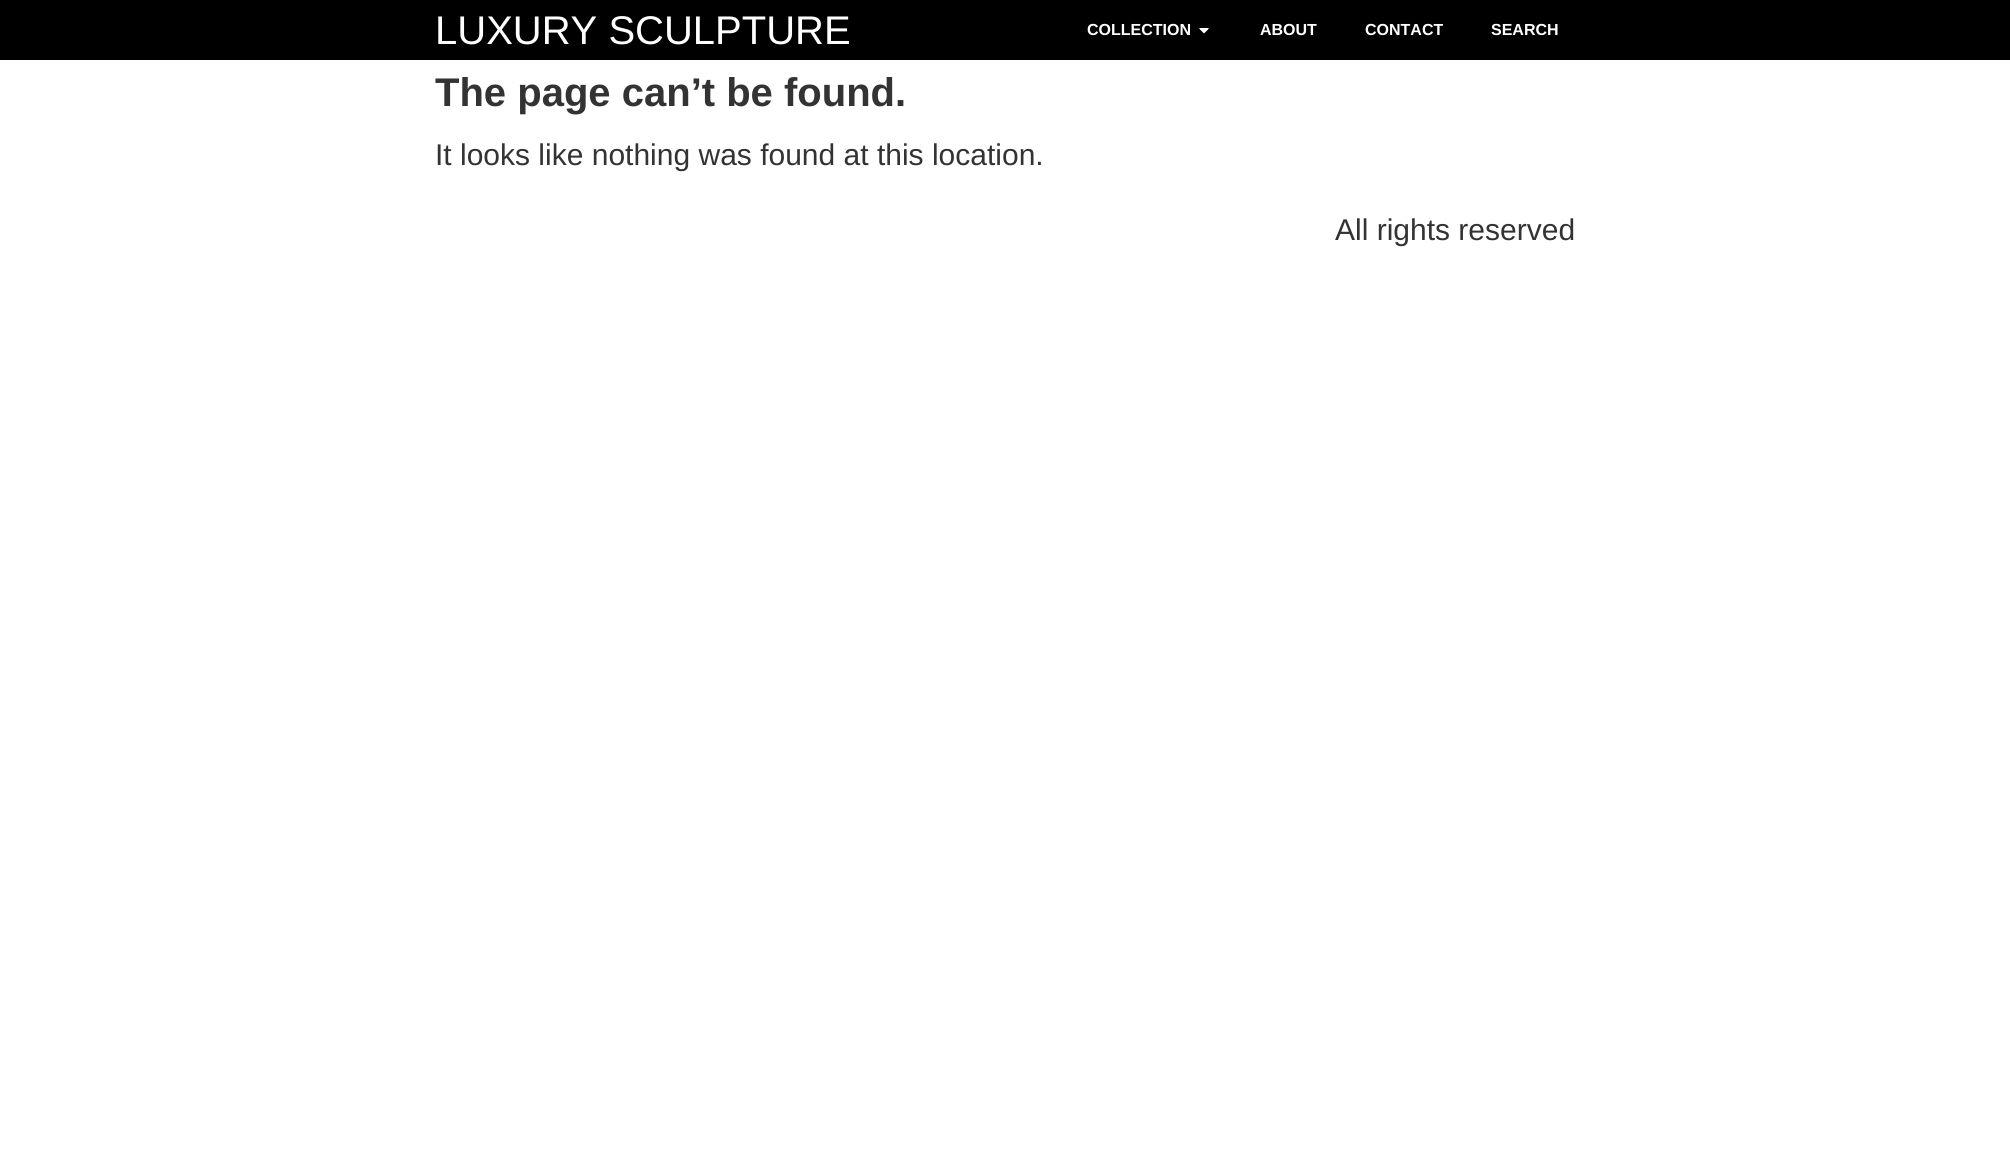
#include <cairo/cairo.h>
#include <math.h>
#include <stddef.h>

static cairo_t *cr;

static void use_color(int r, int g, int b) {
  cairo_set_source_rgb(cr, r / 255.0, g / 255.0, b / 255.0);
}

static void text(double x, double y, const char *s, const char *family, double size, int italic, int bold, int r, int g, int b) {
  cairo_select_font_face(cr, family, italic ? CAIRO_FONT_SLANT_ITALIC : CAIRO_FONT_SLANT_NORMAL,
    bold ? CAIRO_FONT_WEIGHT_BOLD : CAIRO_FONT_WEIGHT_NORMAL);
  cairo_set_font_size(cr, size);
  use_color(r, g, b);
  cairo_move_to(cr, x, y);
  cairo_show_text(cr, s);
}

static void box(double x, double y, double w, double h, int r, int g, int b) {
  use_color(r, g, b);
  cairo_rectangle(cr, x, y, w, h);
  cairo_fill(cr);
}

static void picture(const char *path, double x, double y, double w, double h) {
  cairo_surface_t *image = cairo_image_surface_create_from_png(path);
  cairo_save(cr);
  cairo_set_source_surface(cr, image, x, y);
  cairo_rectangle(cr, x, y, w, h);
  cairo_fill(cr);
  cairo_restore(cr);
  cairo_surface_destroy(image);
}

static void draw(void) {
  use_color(255, 255, 255);
  cairo_paint(cr);
  box(0, 0, 2010, 60, 0, 0, 0);
  picture("img_01.png", 1199, 28, 10, 6);
  text(435, 44, "LUXURY SCULPTURE", "Liberation Sans", 40, 0, 0, 255, 255, 255);
  text(1087, 35, "COLLECTION", "Liberation Sans", 16, 0, 1, 255, 255, 255);
  text(1260, 35, "ABOUT", "Liberation Sans", 16, 0, 1, 255, 255, 255);
  text(1365, 35, "CONTACT", "Liberation Sans", 16, 0, 1, 255, 255, 255);
  text(1491, 35, "SEARCH", "Liberation Sans", 16, 0, 1, 255, 255, 255);
  text(435, 106, "The page can’t be found.", "Liberation Sans", 40, 0, 1, 51, 51, 51);
  text(435, 165, "It looks like nothing was found at this location.", "Liberation Sans", 30, 0, 0, 51, 51, 51);
  text(1335, 240, "All rights reserved", "Liberation Sans", 30, 0, 0, 51, 51, 51);
}

int main(void) {
  cairo_surface_t *surface = cairo_image_surface_create(CAIRO_FORMAT_RGB24, 2010, 1151);
  cr = cairo_create(surface);
  cairo_font_options_t *options = cairo_font_options_create();
  cairo_font_options_set_hint_metrics(options, CAIRO_HINT_METRICS_OFF);
  cairo_font_options_set_hint_style(options, CAIRO_HINT_STYLE_NONE);
  cairo_set_font_options(cr, options);
  cairo_set_miter_limit(cr, 4);
  draw();
  cairo_surface_write_to_png(surface, "out.png");
  cairo_font_options_destroy(options);
  cairo_destroy(cr);
  cairo_surface_destroy(surface);
  return 0;
}
